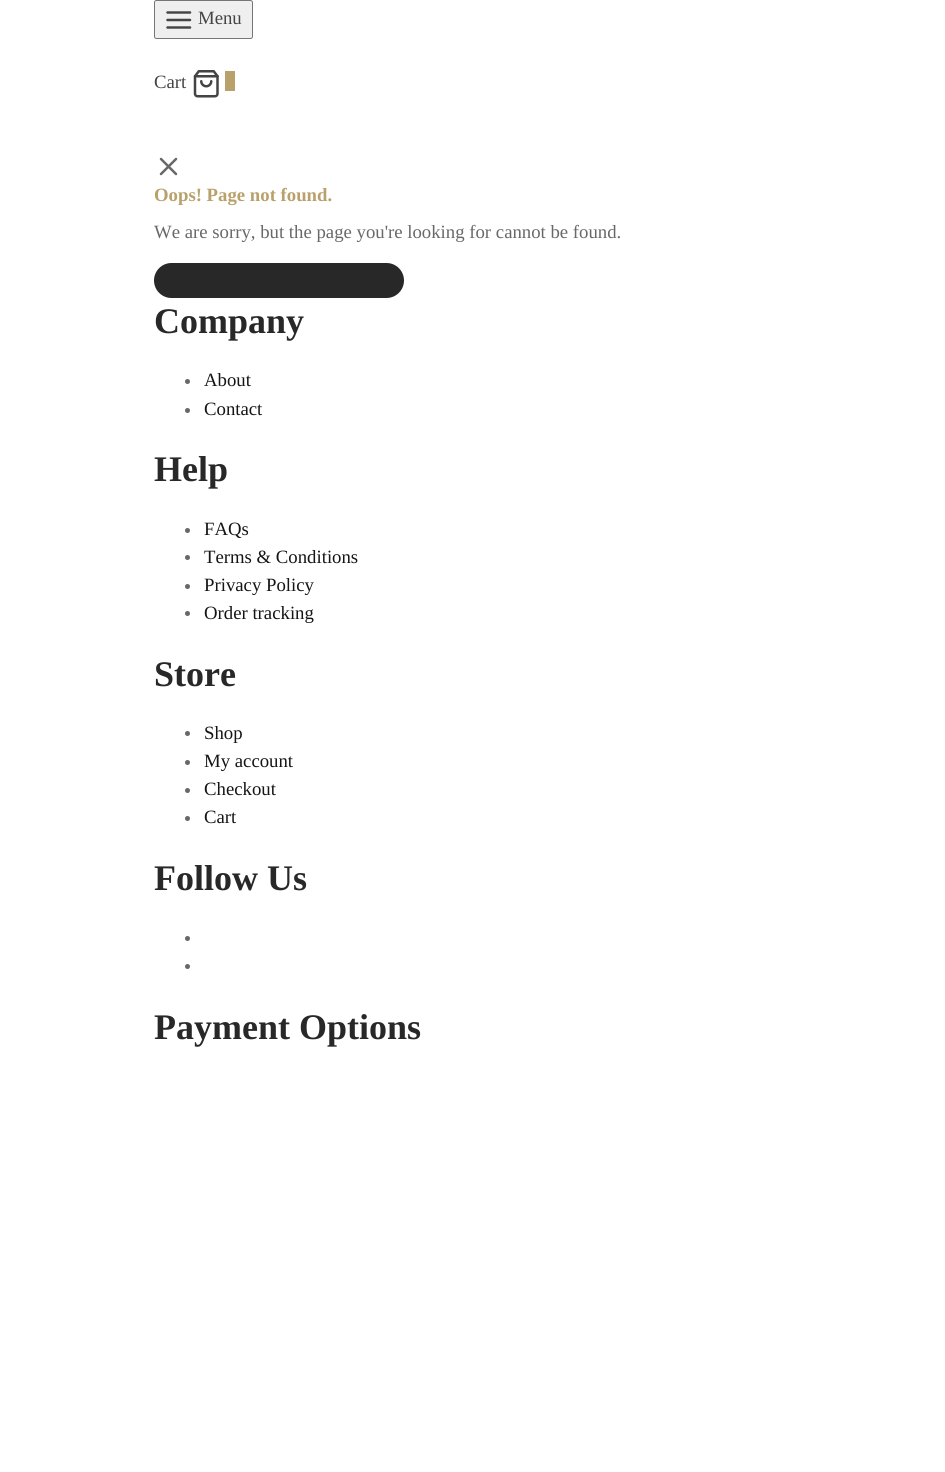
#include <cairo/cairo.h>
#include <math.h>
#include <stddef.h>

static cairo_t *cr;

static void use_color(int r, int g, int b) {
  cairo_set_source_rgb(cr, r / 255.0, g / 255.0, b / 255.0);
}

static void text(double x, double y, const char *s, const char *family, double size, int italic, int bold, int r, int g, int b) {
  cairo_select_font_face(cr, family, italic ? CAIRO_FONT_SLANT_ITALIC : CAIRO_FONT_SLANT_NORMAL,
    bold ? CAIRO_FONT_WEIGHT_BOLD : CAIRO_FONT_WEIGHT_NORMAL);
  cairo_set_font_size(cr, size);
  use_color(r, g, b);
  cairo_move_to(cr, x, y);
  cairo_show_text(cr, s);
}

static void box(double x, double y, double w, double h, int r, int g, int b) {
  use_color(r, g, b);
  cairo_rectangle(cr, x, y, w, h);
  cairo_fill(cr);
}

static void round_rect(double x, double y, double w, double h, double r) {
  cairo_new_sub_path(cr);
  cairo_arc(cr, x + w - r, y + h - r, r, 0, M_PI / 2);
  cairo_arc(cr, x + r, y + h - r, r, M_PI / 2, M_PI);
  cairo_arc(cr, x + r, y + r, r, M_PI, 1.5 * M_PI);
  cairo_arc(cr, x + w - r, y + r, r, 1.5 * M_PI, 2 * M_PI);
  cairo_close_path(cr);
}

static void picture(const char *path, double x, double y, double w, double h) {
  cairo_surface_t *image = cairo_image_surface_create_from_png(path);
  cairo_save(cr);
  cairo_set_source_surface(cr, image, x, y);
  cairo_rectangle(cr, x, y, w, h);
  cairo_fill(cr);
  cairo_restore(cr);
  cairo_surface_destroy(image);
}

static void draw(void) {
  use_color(255, 255, 255);
  cairo_paint(cr);
  use_color(239, 239, 239);
  round_rect(154.5, 0.5, 98, 38, 2);
  cairo_fill_preserve(cr);
  use_color(118, 118, 118);
  cairo_set_line_width(cr, 1);
  cairo_stroke(cr);
  cairo_new_path(cr);
  cairo_move_to(cr, 167.5, 20);
  cairo_line_to(cr, 190, 20);
  cairo_move_to(cr, 167.5, 12.5);
  cairo_line_to(cr, 190, 12.5);
  cairo_move_to(cr, 167.5, 27.5);
  cairo_line_to(cr, 190, 27.5);
  use_color(68, 68, 68);
  cairo_set_line_width(cr, 2.5);
  cairo_set_line_cap(cr, CAIRO_LINE_CAP_ROUND);
  cairo_set_line_join(cr, CAIRO_LINE_JOIN_ROUND);
  cairo_stroke(cr);
  box(225, 71, 10, 20, 185, 161, 107);
  picture("img_01.png", 193, 70, 26, 28);
  cairo_new_path(cr);
  cairo_move_to(cr, 176, 159);
  cairo_line_to(cr, 161, 174);
  cairo_move_to(cr, 161, 159);
  cairo_line_to(cr, 176, 174);
  use_color(104, 104, 104);
  cairo_stroke(cr);
  use_color(40, 40, 40);
  round_rect(154, 263, 250, 35, 17.5);
  cairo_fill(cr);
  use_color(104, 104, 104);
  cairo_arc(cr, 187.5, 381.5, 2.5, 0, 2 * M_PI);
  cairo_fill(cr);
  cairo_arc(cr, 187.5, 410.5, 2.5, 0, 2 * M_PI);
  cairo_fill(cr);
  cairo_arc(cr, 187.5, 530.5, 2.5, 0, 2 * M_PI);
  cairo_fill(cr);
  cairo_arc(cr, 187.5, 557.5, 2.5, 0, 2 * M_PI);
  cairo_fill(cr);
  cairo_arc(cr, 187.5, 586.5, 2.5, 0, 2 * M_PI);
  cairo_fill(cr);
  cairo_arc(cr, 187.5, 613.5, 2.5, 0, 2 * M_PI);
  cairo_fill(cr);
  cairo_arc(cr, 187.5, 733.5, 2.5, 0, 2 * M_PI);
  cairo_fill(cr);
  cairo_arc(cr, 187.5, 762.5, 2.5, 0, 2 * M_PI);
  cairo_fill(cr);
  cairo_arc(cr, 187.5, 790.5, 2.5, 0, 2 * M_PI);
  cairo_fill(cr);
  cairo_arc(cr, 187.5, 818.5, 2.5, 0, 2 * M_PI);
  cairo_fill(cr);
  cairo_arc(cr, 187.5, 938.5, 2.5, 0, 2 * M_PI);
  cairo_fill(cr);
  cairo_arc(cr, 187.5, 966.5, 2.5, 0, 2 * M_PI);
  cairo_fill(cr);
  text(198, 24, "Menu", "Liberation Serif", 18.75, 0, 0, 68, 68, 68);
  text(154, 88, "Cart", "Liberation Serif", 18.75, 0, 0, 68, 68, 68);
  text(154, 201, "Oops! Page not found.", "Liberation Serif", 18.75, 0, 1, 185, 161, 107);
  text(154, 238, "We are sorry, but the page you're looking for cannot be found.", "Liberation Serif", 18.75, 0, 0, 104, 104, 104);
  text(154, 333, "Company", "Liberation Serif", 36, 0, 1, 40, 40, 40);
  text(204, 386, "About", "Liberation Serif", 18.75, 0, 0, 21, 21, 21);
  text(204, 415, "Contact", "Liberation Serif", 18.75, 0, 0, 21, 21, 21);
  text(154, 481, "Help", "Liberation Serif", 36, 0, 1, 40, 40, 40);
  text(204, 535, "FAQs", "Liberation Serif", 18.75, 0, 0, 21, 21, 21);
  text(204, 563, "Terms & Conditions", "Liberation Serif", 18.75, 0, 0, 21, 21, 21);
  text(204, 591, "Privacy Policy", "Liberation Serif", 18.75, 0, 0, 21, 21, 21);
  text(204, 619, "Order tracking", "Liberation Serif", 18.75, 0, 0, 21, 21, 21);
  text(154, 686, "Store", "Liberation Serif", 36, 0, 1, 40, 40, 40);
  text(204, 739, "Shop", "Liberation Serif", 18.75, 0, 0, 21, 21, 21);
  text(204, 767, "My account", "Liberation Serif", 18.75, 0, 0, 21, 21, 21);
  text(204, 795, "Checkout", "Liberation Serif", 18.75, 0, 0, 21, 21, 21);
  text(204, 823, "Cart", "Liberation Serif", 18.75, 0, 0, 21, 21, 21);
  text(154, 890, "Follow Us", "Liberation Serif", 36, 0, 1, 40, 40, 40);
  text(154, 1039, "Payment Options", "Liberation Serif", 36, 0, 1, 40, 40, 40);
}

int main(void) {
  cairo_surface_t *surface = cairo_image_surface_create(CAIRO_FORMAT_RGB24, 945, 1472);
  cr = cairo_create(surface);
  cairo_font_options_t *options = cairo_font_options_create();
  cairo_font_options_set_hint_metrics(options, CAIRO_HINT_METRICS_OFF);
  cairo_font_options_set_hint_style(options, CAIRO_HINT_STYLE_NONE);
  cairo_set_font_options(cr, options);
  cairo_set_miter_limit(cr, 4);
  draw();
  cairo_surface_write_to_png(surface, "out.png");
  cairo_font_options_destroy(options);
  cairo_destroy(cr);
  cairo_surface_destroy(surface);
  return 0;
}
